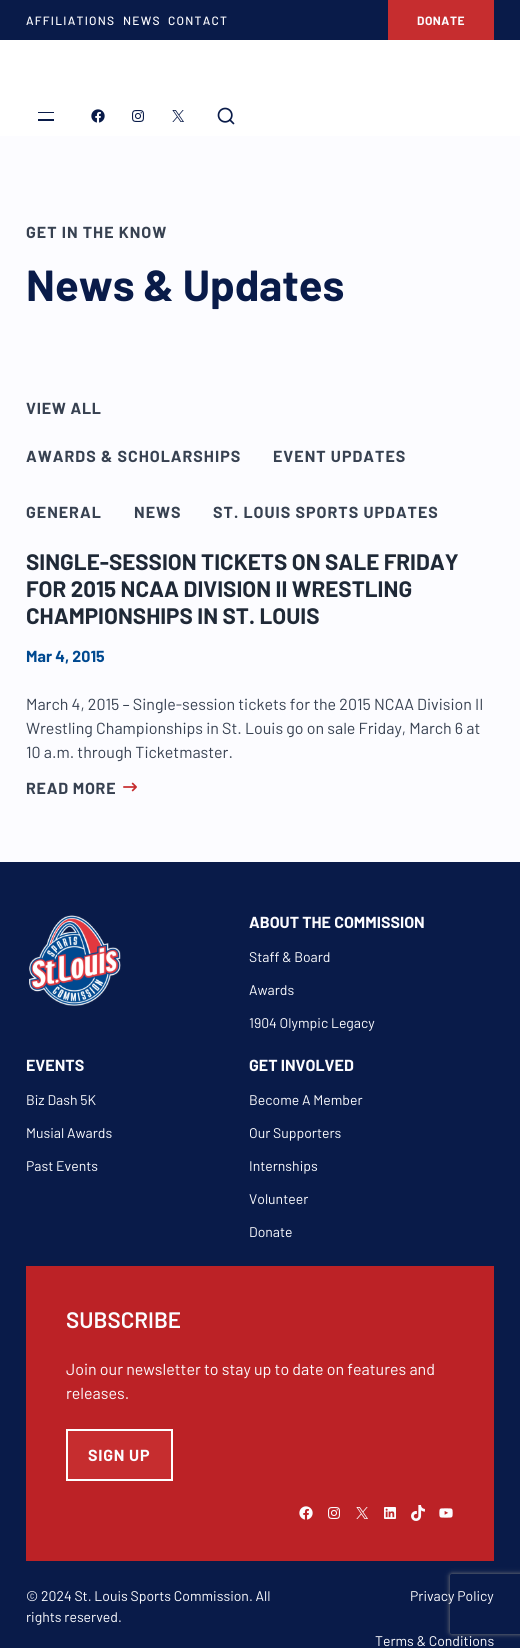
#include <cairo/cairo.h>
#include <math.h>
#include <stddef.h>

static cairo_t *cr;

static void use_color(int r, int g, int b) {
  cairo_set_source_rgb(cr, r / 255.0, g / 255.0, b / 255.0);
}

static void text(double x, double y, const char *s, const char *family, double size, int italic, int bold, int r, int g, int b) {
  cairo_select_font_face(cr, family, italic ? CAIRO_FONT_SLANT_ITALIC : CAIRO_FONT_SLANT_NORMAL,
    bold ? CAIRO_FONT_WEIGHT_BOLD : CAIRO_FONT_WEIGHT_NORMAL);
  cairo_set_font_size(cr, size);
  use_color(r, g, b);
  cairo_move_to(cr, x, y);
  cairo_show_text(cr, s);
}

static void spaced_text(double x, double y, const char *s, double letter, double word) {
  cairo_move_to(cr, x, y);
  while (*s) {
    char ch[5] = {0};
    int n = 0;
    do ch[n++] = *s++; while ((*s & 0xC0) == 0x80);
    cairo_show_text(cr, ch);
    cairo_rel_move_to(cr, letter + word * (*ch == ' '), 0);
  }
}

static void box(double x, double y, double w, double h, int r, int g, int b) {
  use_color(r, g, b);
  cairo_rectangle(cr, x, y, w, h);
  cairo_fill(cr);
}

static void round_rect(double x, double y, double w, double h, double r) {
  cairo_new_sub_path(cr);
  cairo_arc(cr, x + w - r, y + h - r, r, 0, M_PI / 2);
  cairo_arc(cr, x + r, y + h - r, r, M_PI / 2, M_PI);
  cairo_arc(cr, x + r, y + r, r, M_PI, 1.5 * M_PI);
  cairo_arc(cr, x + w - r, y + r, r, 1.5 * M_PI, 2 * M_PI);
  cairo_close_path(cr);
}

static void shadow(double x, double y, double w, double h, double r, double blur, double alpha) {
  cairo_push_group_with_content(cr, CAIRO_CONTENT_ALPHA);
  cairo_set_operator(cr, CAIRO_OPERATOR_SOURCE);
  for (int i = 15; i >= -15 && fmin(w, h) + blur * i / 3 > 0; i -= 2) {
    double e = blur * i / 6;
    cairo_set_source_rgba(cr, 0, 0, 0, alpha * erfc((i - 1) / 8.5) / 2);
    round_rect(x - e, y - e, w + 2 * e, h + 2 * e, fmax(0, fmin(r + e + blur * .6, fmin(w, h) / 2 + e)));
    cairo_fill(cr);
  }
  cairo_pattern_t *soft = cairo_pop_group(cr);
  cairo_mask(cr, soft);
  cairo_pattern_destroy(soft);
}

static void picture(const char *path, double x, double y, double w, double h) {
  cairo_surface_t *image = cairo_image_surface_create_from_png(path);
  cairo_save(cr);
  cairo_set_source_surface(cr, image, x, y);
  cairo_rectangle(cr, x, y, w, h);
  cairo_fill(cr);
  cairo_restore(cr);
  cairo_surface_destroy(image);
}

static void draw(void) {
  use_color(255, 255, 255);
  cairo_paint(cr);
  box(0, 0, 520, 40, 9, 27, 73);
  box(388, 0, 106, 40, 198, 45, 47);
  box(38, 112, 16, 1, 9, 27, 73);
  box(38, 119, 16, 2, 9, 27, 73);
  picture("img_01.png", 91, 109, 14, 14);
  picture("img_02.png", 132, 110, 12, 12);
  picture("img_03.png", 172, 110, 12, 12);
  picture("img_04.png", 217, 107, 18, 18);
  box(0, 136, 520, 726, 252, 252, 255);
  picture("img_05.png", 123, 782, 14, 10);
  box(0, 862, 520, 786, 9, 27, 73);
  picture("img_06.png", 29, 915, 92, 91);
  box(26, 1266, 468, 295, 188, 34, 38);
  use_color(198, 45, 47);
  cairo_rectangle(cr, 67, 1430, 105, 50);
  cairo_fill_preserve(cr);
  use_color(255, 255, 255);
  cairo_stroke(cr);
  picture("img_07.png", 299, 1506, 14, 14);
  picture("img_08.png", 328, 1507, 12, 12);
  picture("img_09.png", 356, 1507, 12, 12);
  picture("img_10.png", 384, 1507, 12, 12);
  picture("img_11.png", 411, 1505, 14, 16);
  picture("img_12.png", 439, 1508, 14, 10);
  cairo_save(cr);
  cairo_set_fill_rule(cr, CAIRO_FILL_RULE_EVEN_ODD);
  cairo_new_path(cr);
  cairo_move_to(cr, 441, 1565);
  cairo_line_to(cr, 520, 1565);
  cairo_line_to(cr, 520, 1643);
  cairo_line_to(cr, 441, 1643);
  cairo_close_path(cr);
  cairo_move_to(cr, 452, 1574);
  cairo_line_to(cr, 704, 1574);
  cairo_curve_to(cr, 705, 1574, 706, 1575, 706, 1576);
  cairo_line_to(cr, 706, 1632);
  cairo_curve_to(cr, 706, 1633, 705, 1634, 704, 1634);
  cairo_line_to(cr, 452, 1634);
  cairo_curve_to(cr, 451, 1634, 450, 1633, 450, 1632);
  cairo_line_to(cr, 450, 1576);
  cairo_curve_to(cr, 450, 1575, 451, 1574, 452, 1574);
  cairo_close_path(cr);
  cairo_clip(cr);
  use_color(128, 128, 128);
  shadow(450, 1574, 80, 60, 2, 2.5, 1);
  cairo_restore(cr);
  cairo_select_font_face(cr, "Barlow Medium", CAIRO_FONT_SLANT_NORMAL, CAIRO_FONT_WEIGHT_NORMAL);
  cairo_set_font_size(cr, 12);
  use_color(252, 252, 255);
  spaced_text(26, 25, "AFFILIATIONS", 1.25, 0);
  spaced_text(123, 25, "NEWS", 1.25, 0);
  spaced_text(168, 25, "CONTACT", 1.25, 0);
  cairo_select_font_face(cr, "Barlow", CAIRO_FONT_SLANT_NORMAL, CAIRO_FONT_WEIGHT_BOLD);
  spaced_text(417, 25, "DONATE", 0.5, 0);
  cairo_set_font_size(cr, 16);
  use_color(55, 65, 81);
  spaced_text(26, 238, "GET IN THE KNOW", 1, 0);
  text(26, 301, "News & Updates", "Barlow", 43.5, 0, 1, 9, 27, 73);
  cairo_set_font_size(cr, 16);
  use_color(55, 65, 81);
  spaced_text(26, 414, "VIEW ALL", 0.75, 0);
  spaced_text(26, 462, "AWARDS & SCHOLARSHIPS", 1, 0);
  spaced_text(273, 462, "EVENT UPDATES", 1, 0);
  spaced_text(26, 518, "GENERAL", 1, 0);
  spaced_text(134, 518, "NEWS", 1, 0);
  spaced_text(213, 518, "ST. LOUIS SPORTS UPDATES", 1, 0);
  text(26, 570, "SINGLE-SESSION TICKETS ON SALE FRIDAY", "Barlow", 22.4, 0, 1, 31, 41, 55);
  text(26, 597, "FOR 2015 NCAA DIVISION II WRESTLING", "Barlow", 22.4, 0, 1, 31, 41, 55);
  text(26, 624, "CHAMPIONSHIPS IN ST. LOUIS", "Barlow", 22.4, 0, 1, 31, 41, 55);
  text(26, 662, "Mar 4, 2015", "Barlow", 16, 0, 1, 0, 73, 144);
  text(26, 710, "March 4, 2015 – Single-session tickets for the 2015 NCAA Division II", "Barlow", 16, 0, 0, 55, 65, 81);
  text(26, 734, "Wrestling Championships in St. Louis go on sale Friday, March 6 at", "Barlow", 16, 0, 0, 55, 65, 81);
  text(26, 758, "10 a.m. through Ticketmaster.", "Barlow", 16, 0, 0, 55, 65, 81);
  cairo_select_font_face(cr, "Barlow", CAIRO_FONT_SLANT_NORMAL, CAIRO_FONT_WEIGHT_BOLD);
  spaced_text(26, 794, "READ MORE", 0.75, 0);
  text(249, 928, "ABOUT THE COMMISSION", "Barlow", 16, 0, 1, 252, 252, 255);
  text(249, 962, "Staff & Board", "Barlow", 14, 0, 0, 252, 252, 255);
  text(249, 995, "Awards", "Barlow", 14, 0, 0, 252, 252, 255);
  text(249, 1028, "1904 Olympic Legacy", "Barlow", 14, 0, 0, 252, 252, 255);
  text(26, 1071, "EVENTS", "Barlow", 16, 0, 1, 252, 252, 255);
  text(26, 1105, "Biz Dash 5K", "Barlow", 14, 0, 0, 252, 252, 255);
  text(26, 1138, "Musial Awards", "Barlow", 14, 0, 0, 252, 252, 255);
  text(26, 1171, "Past Events", "Barlow", 14, 0, 0, 252, 252, 255);
  text(249, 1071, "GET INVOLVED", "Barlow", 16, 0, 1, 252, 252, 255);
  text(249, 1105, "Become A Member", "Barlow", 14, 0, 0, 252, 252, 255);
  text(249, 1138, "Our Supporters", "Barlow", 14, 0, 0, 252, 252, 255);
  text(249, 1171, "Internships", "Barlow", 14, 0, 0, 252, 252, 255);
  text(249, 1204, "Volunteer", "Barlow", 14, 0, 0, 252, 252, 255);
  text(249, 1237, "Donate", "Barlow", 14, 0, 0, 252, 252, 255);
  text(66, 1328, "SUBSCRIBE", "Barlow SemiBold", 22.4, 0, 0, 252, 252, 255);
  text(66, 1375, "Join our newsletter to stay up to date on features and", "Barlow", 16, 0, 0, 252, 252, 255);
  text(66, 1399, "releases.", "Barlow", 16, 0, 0, 252, 252, 255);
  cairo_select_font_face(cr, "Barlow", CAIRO_FONT_SLANT_NORMAL, CAIRO_FONT_WEIGHT_BOLD);
  spaced_text(88, 1461, "SIGN UP", 0.75, 0);
  text(26, 1601, "© 2024 St. Louis Sports Commission. All", "Barlow", 14, 0, 0, 252, 252, 255);
  text(26, 1622, "rights reserved.", "Barlow", 14, 0, 0, 252, 252, 255);
  text(410, 1601, "Privacy Policy", "Barlow", 14, 0, 0, 252, 252, 255);
  text(375, 1646, "Terms & Conditions", "Barlow", 14, 0, 0, 252, 252, 255);
}

int main(void) {
  cairo_surface_t *surface = cairo_image_surface_create(CAIRO_FORMAT_RGB24, 520, 1648);
  cr = cairo_create(surface);
  cairo_font_options_t *options = cairo_font_options_create();
  cairo_font_options_set_hint_metrics(options, CAIRO_HINT_METRICS_OFF);
  cairo_font_options_set_hint_style(options, CAIRO_HINT_STYLE_NONE);
  cairo_set_font_options(cr, options);
  cairo_set_miter_limit(cr, 4);
  draw();
  cairo_surface_write_to_png(surface, "out.png");
  cairo_font_options_destroy(options);
  cairo_destroy(cr);
  cairo_surface_destroy(surface);
  return 0;
}
